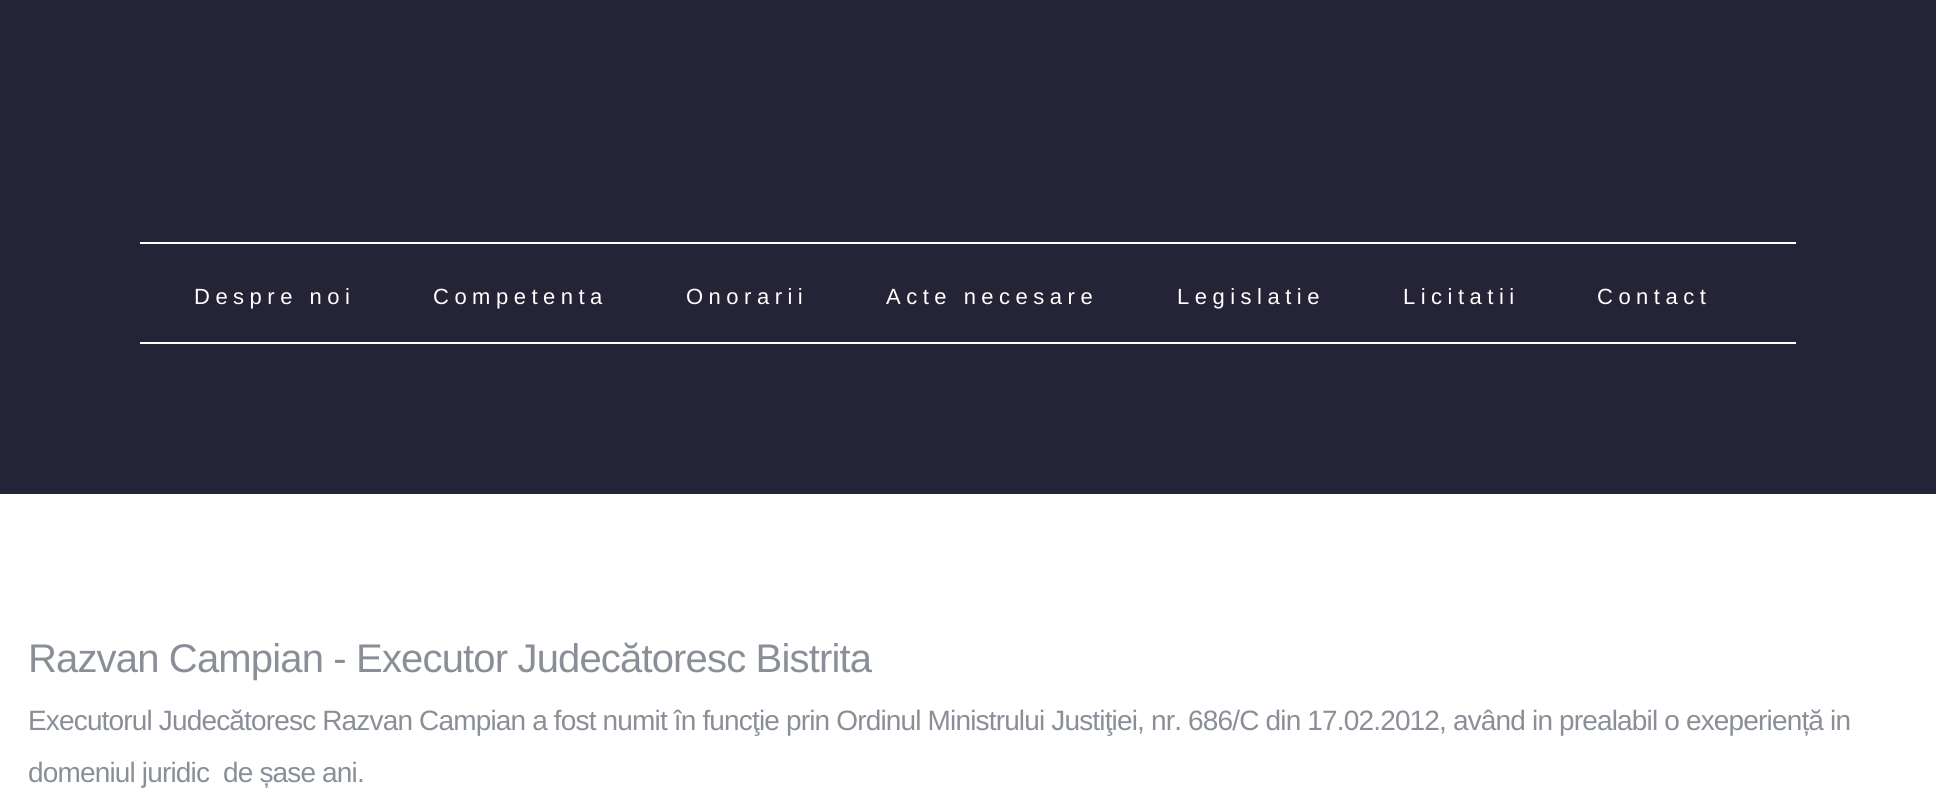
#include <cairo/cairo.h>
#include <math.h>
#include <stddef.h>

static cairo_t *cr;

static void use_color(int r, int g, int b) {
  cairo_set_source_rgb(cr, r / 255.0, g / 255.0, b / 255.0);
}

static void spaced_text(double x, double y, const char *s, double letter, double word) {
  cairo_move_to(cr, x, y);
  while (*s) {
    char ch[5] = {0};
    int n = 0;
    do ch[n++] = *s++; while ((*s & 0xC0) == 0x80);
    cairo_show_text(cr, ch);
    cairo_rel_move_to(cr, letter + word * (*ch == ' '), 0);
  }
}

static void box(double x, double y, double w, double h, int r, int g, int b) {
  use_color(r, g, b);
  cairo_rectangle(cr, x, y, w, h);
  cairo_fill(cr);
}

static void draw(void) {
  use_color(255, 255, 255);
  cairo_paint(cr);
  box(0, 0, 1936, 494, 37, 35, 54);
  box(140, 242, 1656, 2, 255, 255, 255);
  box(140, 342, 1656, 2, 255, 255, 255);
  cairo_select_font_face(cr, "Liberation Sans", CAIRO_FONT_SLANT_NORMAL, CAIRO_FONT_WEIGHT_NORMAL);
  cairo_set_font_size(cr, 22);
  spaced_text(194, 304, "Despre noi", 5.5, 0);
  spaced_text(433, 304, "Competenta", 5.5, 0);
  spaced_text(686, 304, "Onorarii", 5.5, 0);
  spaced_text(886, 304, "Acte necesare", 5.5, 0);
  spaced_text(1177, 304, "Legislatie", 5.5, 0);
  spaced_text(1403, 304, "Licitatii", 5.5, 0);
  spaced_text(1597, 304, "Contact", 5.5, 0);
  cairo_set_font_size(cr, 40);
  use_color(138, 143, 151);
  spaced_text(28, 672, "Razvan Campian - Executor Judecătoresc Bistrita", -0.84, 0);
  cairo_set_font_size(cr, 28);
  spaced_text(28, 730, "Executorul Judecătoresc Razvan Campian a fost numit în funcţie prin Ordinul Ministrului Justiţiei, nr. 686/C din 17.02.2012, având in prealabil o exeperiență in", -0.84, 0);
  spaced_text(28, 782, "domeniul juridic  de șase ani.", -0.84, 0);
}

int main(void) {
  cairo_surface_t *surface = cairo_image_surface_create(CAIRO_FORMAT_RGB24, 1936, 801);
  cr = cairo_create(surface);
  cairo_font_options_t *options = cairo_font_options_create();
  cairo_font_options_set_hint_metrics(options, CAIRO_HINT_METRICS_OFF);
  cairo_font_options_set_hint_style(options, CAIRO_HINT_STYLE_NONE);
  cairo_set_font_options(cr, options);
  cairo_set_miter_limit(cr, 4);
  draw();
  cairo_surface_write_to_png(surface, "out.png");
  cairo_font_options_destroy(options);
  cairo_destroy(cr);
  cairo_surface_destroy(surface);
  return 0;
}
